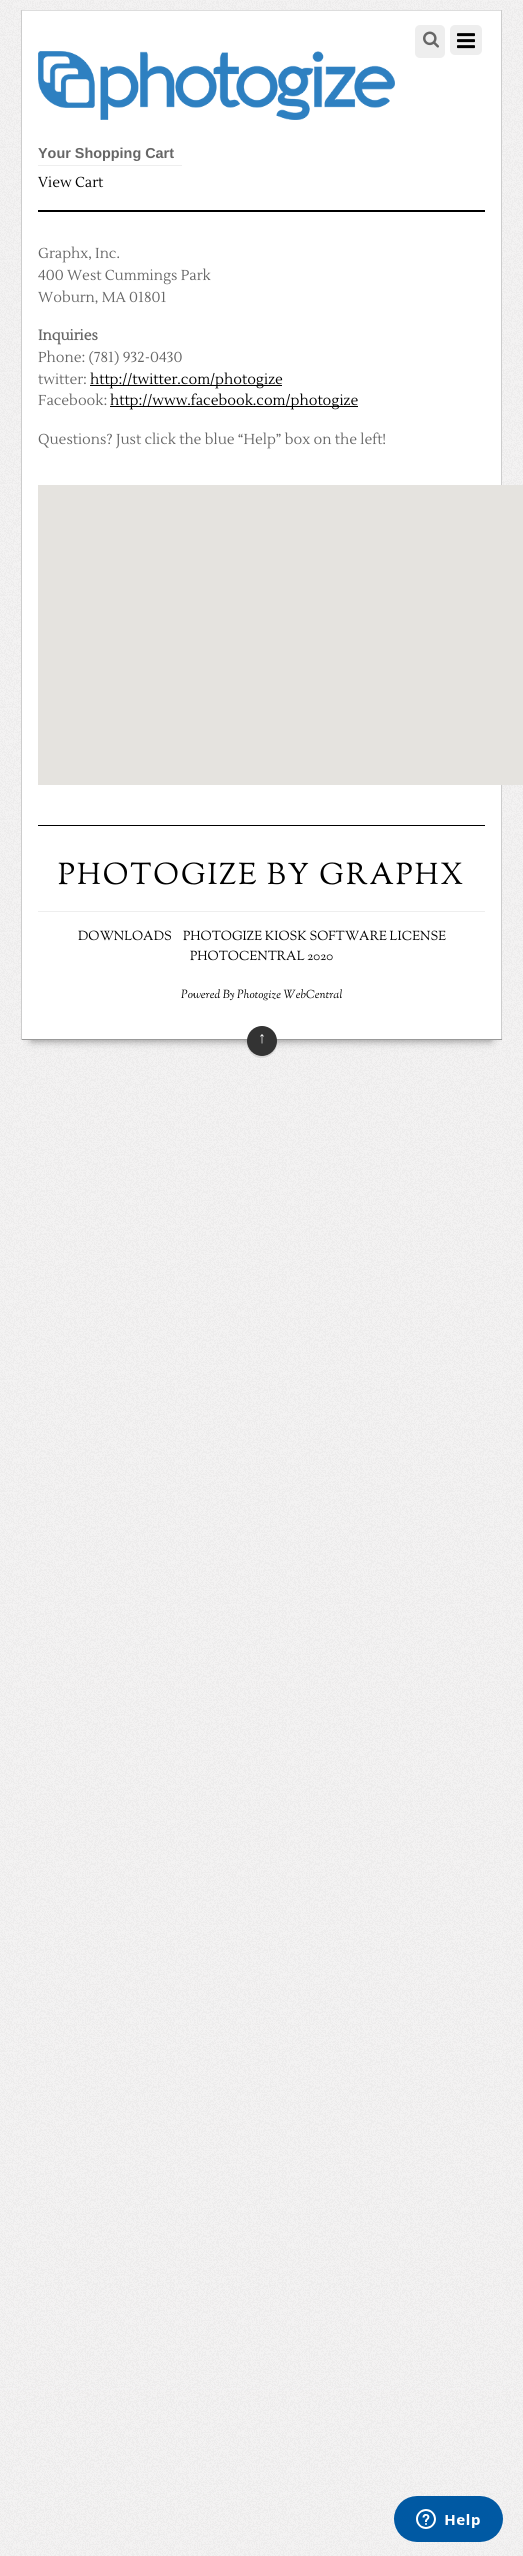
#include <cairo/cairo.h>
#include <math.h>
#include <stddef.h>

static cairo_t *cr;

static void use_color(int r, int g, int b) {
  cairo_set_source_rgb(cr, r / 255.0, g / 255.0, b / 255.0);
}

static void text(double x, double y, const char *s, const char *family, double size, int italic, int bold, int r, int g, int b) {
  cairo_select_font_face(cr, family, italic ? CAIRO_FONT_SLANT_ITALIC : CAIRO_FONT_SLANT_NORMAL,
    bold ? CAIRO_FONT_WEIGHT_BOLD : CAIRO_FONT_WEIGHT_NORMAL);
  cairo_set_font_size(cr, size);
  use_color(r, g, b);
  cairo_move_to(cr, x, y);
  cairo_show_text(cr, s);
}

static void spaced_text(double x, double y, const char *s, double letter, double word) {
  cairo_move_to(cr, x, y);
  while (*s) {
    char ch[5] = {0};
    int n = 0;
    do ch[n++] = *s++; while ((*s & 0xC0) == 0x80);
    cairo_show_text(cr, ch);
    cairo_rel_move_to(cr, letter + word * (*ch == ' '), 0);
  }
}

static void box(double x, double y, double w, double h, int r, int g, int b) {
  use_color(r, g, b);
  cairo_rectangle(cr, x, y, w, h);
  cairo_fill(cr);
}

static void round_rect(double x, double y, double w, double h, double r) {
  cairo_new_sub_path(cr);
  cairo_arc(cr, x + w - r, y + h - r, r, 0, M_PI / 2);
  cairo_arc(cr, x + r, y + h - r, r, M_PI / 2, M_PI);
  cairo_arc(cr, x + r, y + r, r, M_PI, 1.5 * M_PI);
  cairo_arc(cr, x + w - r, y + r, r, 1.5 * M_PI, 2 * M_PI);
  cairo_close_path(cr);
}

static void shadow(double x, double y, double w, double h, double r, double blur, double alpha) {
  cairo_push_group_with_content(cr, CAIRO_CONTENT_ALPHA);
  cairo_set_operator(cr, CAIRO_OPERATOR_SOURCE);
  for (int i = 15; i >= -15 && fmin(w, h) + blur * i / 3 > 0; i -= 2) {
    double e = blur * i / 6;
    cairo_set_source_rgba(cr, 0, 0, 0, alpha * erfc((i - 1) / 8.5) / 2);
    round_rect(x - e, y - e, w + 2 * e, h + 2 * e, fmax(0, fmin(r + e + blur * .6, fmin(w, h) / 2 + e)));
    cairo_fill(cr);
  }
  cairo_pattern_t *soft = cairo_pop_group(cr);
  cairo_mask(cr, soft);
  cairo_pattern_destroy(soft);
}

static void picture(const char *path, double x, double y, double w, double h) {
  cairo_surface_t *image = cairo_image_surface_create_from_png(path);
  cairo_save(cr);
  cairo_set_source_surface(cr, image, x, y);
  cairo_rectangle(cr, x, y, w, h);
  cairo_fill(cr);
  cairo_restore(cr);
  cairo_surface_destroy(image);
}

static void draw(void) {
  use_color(244, 243, 243);
  cairo_paint(cr);
  picture("img_01.png", 0, 0, 523, 2556);
  use_color(0, 0, 0);
  shadow(32, 1029, 239, 10, 0, 5, 0.6);
  shadow(251, 1029, 240, 10, 0, 5, 0.6);
  box(22, 11, 479, 1028, 255, 255, 255);
  box(21, 10, 481, 1, 221, 221, 221);
  box(501, 10, 1, 1030, 204, 204, 204);
  box(21, 1039, 481, 1, 153, 153, 153);
  box(21, 10, 1, 1030, 204, 204, 204);
  box(38, 210, 447, 2, 0, 0, 0);
  use_color(238, 238, 238);
  round_rect(415, 25, 30, 33, 5);
  cairo_fill(cr);
  picture("img_02.png", 423, 31, 16, 17);
  round_rect(450, 25, 32, 30, 5);
  cairo_fill(cr);
  picture("img_03.png", 457, 33, 18, 16);
  picture("img_04.png", 38, 51, 357, 69);
  box(38, 165, 144, 1, 238, 238, 238);
  box(90, 385, 192, 1, 0, 0, 0);
  box(110, 406, 248, 1, 0, 0, 0);
  box(38, 485, 485, 300, 229, 227, 223);
  box(38, 825, 447, 1, 0, 0, 0);
  box(38, 911, 447, 1, 238, 238, 238);
  cairo_set_source_rgba(cr, 0, 0, 0, 0.1);
  cairo_new_path(cr);
  cairo_move_to(cr, 247, 1042);
  cairo_curve_to(cr, 247, 1045.5, 247.5, 1048.5, 249.5, 1051.5);
  cairo_curve_to(cr, 258, 1064, 278, 1057, 277, 1042);
  cairo_curve_to(cr, 276, 1060.5, 248, 1060.5, 247, 1042);
  cairo_close_path(cr);
  cairo_fill(cr);
  use_color(51, 51, 51);
  cairo_arc(cr, 262, 1041, 15, 0, 2 * M_PI);
  cairo_fill(cr);
  picture("img_05.png", 394, 2496, 109, 46);
  text(38, 158, "Your Shopping Cart", "Liberation Sans", 14.4, 0, 1, 102, 102, 102);
  text(38, 187, "View Cart", "Lustria", 14.4, 0, 0, 0, 0, 0);
  text(38, 258, "Graphx, Inc.", "Lustria", 14.4, 0, 0, 102, 102, 102);
  text(38, 280, "400 West Cummings Park", "Lustria", 14.4, 0, 0, 102, 102, 102);
  text(38, 302, "Woburn, MA 01801", "Lustria", 14.4, 0, 0, 102, 102, 102);
  text(38, 340, "Inquiries", "Lustria", 14.4, 0, 1, 102, 102, 102);
  text(38, 362, "Phone: (781) 932-0430", "Lustria", 14.4, 0, 0, 102, 102, 102);
  text(38, 384, "twitter:", "Lustria", 14.4, 0, 0, 102, 102, 102);
  text(90, 384, "http://twitter.com/photogize", "Lustria", 14.4, 0, 0, 0, 0, 0);
  text(38, 405, "Facebook:", "Lustria", 14.4, 0, 0, 102, 102, 102);
  text(110, 405, "http://www.facebook.com/photogize", "Lustria", 14.4, 0, 0, 0, 0, 0);
  text(38, 444, "Questions? Just click the blue “Help” box on the left!", "Lustria", 14.4, 0, 0, 102, 102, 102);
  cairo_select_font_face(cr, "OFL Sorts Mill Goudy TT Medium", CAIRO_FONT_SLANT_NORMAL, CAIRO_FONT_WEIGHT_NORMAL);
  cairo_set_font_size(cr, 30);
  use_color(0, 0, 0);
  spaced_text(58, 884, "PHOTOGIZE BY GRAPHX", 2, 0);
  text(78, 940, "DOWNLOADS", "OFL Sorts Mill Goudy TT Medium", 13, 0, 0, 0, 0, 0);
  text(183, 940, "PHOTOGIZE KIOSK SOFTWARE LICENSE", "OFL Sorts Mill Goudy TT Medium", 13, 0, 0, 0, 0, 0);
  text(190, 960, "PHOTOCENTRAL 2020", "OFL Sorts Mill Goudy TT Medium", 13, 0, 0, 0, 0, 0);
  text(181, 998, "Powered By Photogize WebCentral", "OFL Sorts Mill Goudy TT Medium", 11.7, 1, 0, 0, 0, 0);
  text(258, 1043, "↑", "Liberation Serif", 16, 0, 0, 255, 255, 255);
}

int main(void) {
  cairo_surface_t *surface = cairo_image_surface_create(CAIRO_FORMAT_RGB24, 523, 2556);
  cr = cairo_create(surface);
  cairo_font_options_t *options = cairo_font_options_create();
  cairo_font_options_set_hint_metrics(options, CAIRO_HINT_METRICS_OFF);
  cairo_font_options_set_hint_style(options, CAIRO_HINT_STYLE_NONE);
  cairo_set_font_options(cr, options);
  cairo_set_miter_limit(cr, 4);
  draw();
  cairo_surface_write_to_png(surface, "out.png");
  cairo_font_options_destroy(options);
  cairo_destroy(cr);
  cairo_surface_destroy(surface);
  return 0;
}
